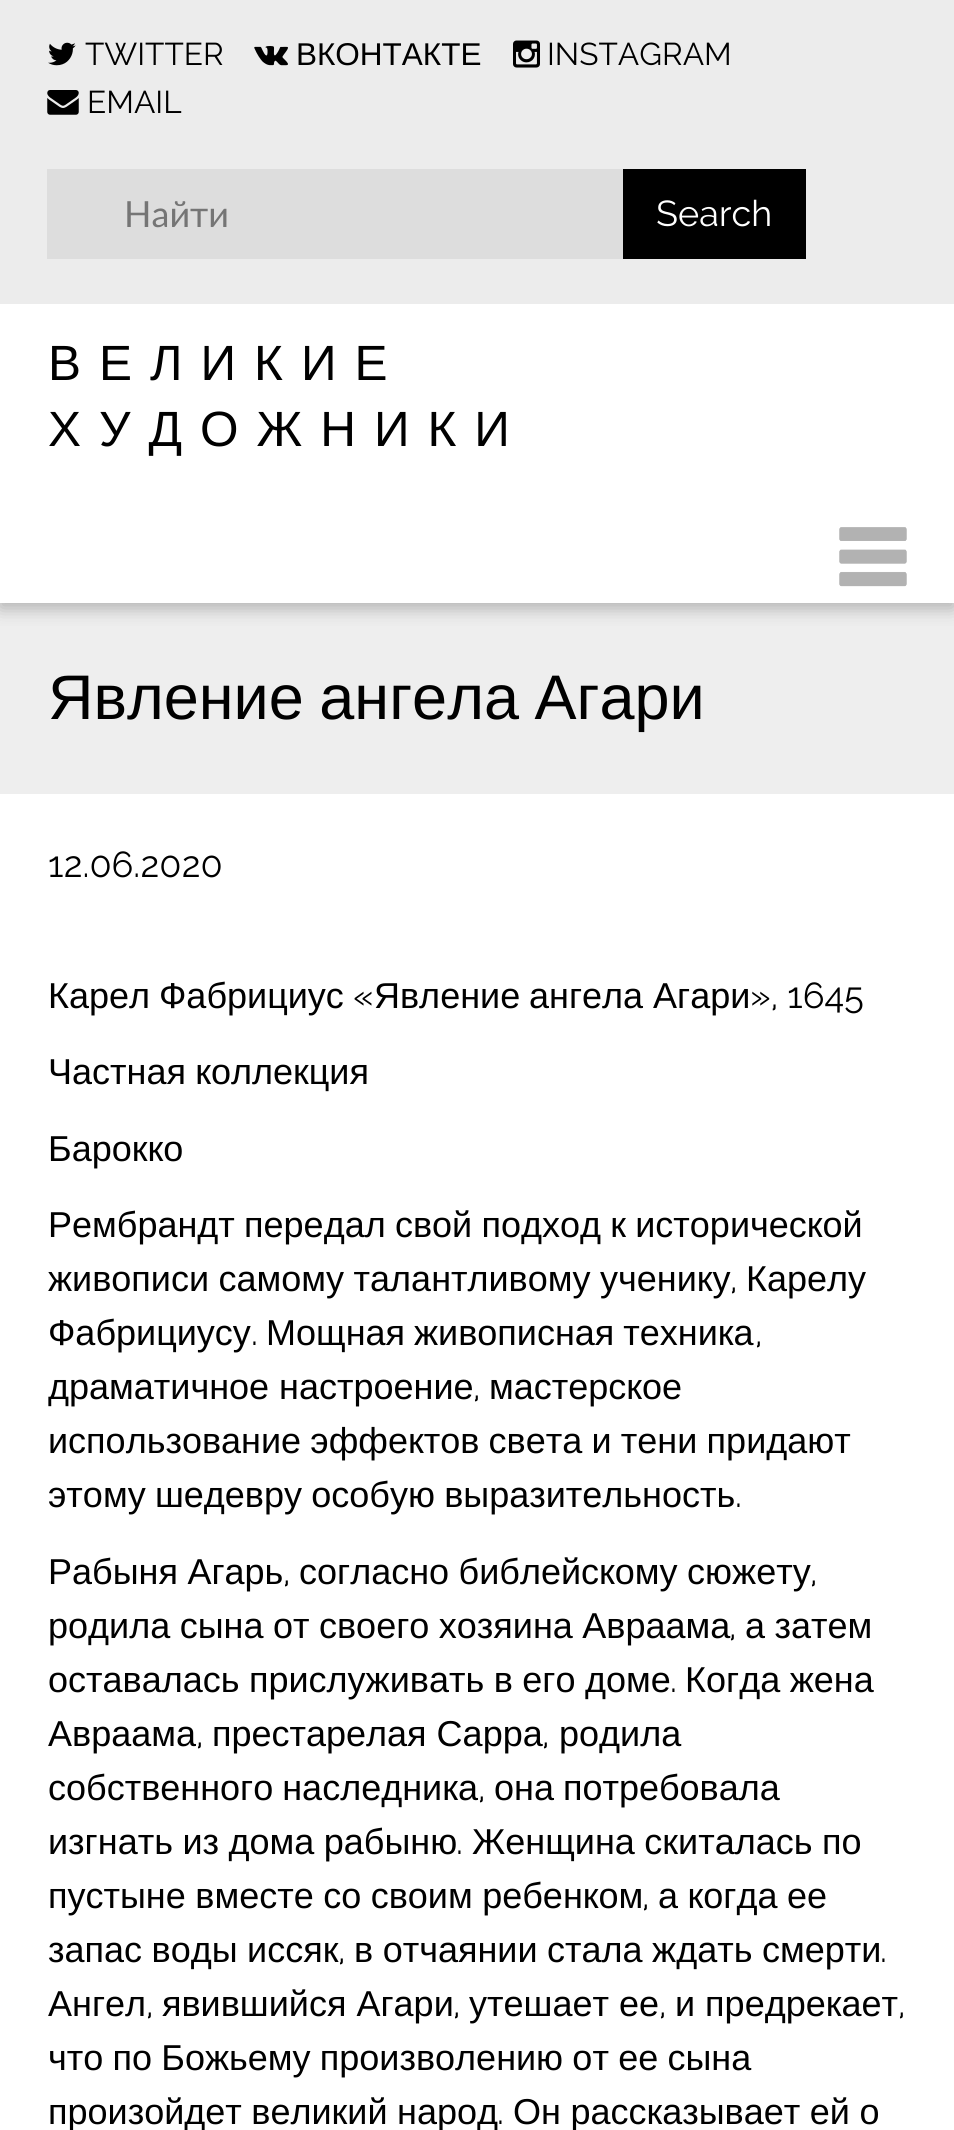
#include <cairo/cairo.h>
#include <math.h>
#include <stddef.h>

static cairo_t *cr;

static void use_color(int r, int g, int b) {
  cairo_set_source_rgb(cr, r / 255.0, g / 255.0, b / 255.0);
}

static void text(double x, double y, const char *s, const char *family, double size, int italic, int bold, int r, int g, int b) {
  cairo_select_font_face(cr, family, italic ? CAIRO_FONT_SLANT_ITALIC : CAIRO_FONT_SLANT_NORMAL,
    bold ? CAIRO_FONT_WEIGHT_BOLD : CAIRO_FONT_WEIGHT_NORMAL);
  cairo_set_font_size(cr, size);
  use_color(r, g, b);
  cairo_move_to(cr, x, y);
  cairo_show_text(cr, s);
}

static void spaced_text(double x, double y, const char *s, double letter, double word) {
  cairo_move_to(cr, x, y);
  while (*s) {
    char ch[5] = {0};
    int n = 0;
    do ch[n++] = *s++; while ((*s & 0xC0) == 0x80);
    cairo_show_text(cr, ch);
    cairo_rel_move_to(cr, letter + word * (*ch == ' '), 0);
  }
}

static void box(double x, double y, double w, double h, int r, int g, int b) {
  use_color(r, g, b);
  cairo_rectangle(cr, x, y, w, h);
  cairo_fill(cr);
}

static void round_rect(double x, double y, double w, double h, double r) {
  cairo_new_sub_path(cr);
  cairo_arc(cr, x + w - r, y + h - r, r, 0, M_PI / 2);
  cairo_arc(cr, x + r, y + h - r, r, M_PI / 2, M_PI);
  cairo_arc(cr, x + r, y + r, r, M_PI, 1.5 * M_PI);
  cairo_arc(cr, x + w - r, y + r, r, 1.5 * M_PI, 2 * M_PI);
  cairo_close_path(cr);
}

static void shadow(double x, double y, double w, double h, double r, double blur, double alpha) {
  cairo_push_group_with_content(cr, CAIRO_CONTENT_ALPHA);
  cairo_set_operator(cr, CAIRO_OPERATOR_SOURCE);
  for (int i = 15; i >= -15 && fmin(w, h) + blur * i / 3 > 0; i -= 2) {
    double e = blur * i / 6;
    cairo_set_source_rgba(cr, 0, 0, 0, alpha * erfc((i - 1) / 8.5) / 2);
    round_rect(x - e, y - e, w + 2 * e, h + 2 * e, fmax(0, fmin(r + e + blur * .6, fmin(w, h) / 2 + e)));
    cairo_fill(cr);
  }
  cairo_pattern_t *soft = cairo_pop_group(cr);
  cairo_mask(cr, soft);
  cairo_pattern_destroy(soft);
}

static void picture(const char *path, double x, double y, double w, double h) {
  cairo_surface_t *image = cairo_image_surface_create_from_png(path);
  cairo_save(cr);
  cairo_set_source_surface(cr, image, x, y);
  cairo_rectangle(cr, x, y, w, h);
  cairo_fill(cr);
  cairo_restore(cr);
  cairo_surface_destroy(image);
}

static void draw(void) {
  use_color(255, 255, 255);
  cairo_paint(cr);
  box(0, 603, 954, 191, 238, 238, 238);
  cairo_save(cr);
  cairo_rectangle(cr, 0, 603, 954, 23);
  cairo_clip(cr);
  use_color(174, 174, 174);
  shadow(0, 5, 954, 603, 0, 9, 1);
  cairo_restore(cr);
  box(0, 0, 954, 304, 236, 236, 236);
  picture("img_01.png", 48, 42, 28, 24);
  picture("img_02.png", 254, 46, 34, 20);
  picture("img_03.png", 513, 40, 27, 28);
  picture("img_04.png", 47, 90, 32, 25);
  box(47, 169, 576, 90, 221, 221, 221);
  box(623, 169, 183, 90, 0, 0, 0);
  picture("img_05.png", 839, 527, 68, 60);
  text(85, 65, "TWITTER", "Raleway", 31.5, 0, 0, 0, 0, 0);
  text(296, 65, "ВКОНТАКТЕ", "Liberation Sans", 31.5, 0, 0, 0, 0, 0);
  text(547, 65, "INSTAGRAM", "Raleway", 31.5, 0, 0, 0, 0, 0);
  text(87, 113, "EMAIL", "Raleway", 31.5, 0, 0, 0, 0, 0);
  text(124, 227, "Найти", "Lato", 36, 0, 0, 117, 117, 117);
  text(656, 226, "Search", "Raleway", 36, 0, 0, 255, 255, 255);
  cairo_select_font_face(cr, "Liberation Sans", CAIRO_FONT_SLANT_NORMAL, CAIRO_FONT_WEIGHT_NORMAL);
  cairo_set_font_size(cr, 49.5);
  use_color(0, 0, 0);
  spaced_text(48, 380, "ВЕЛИКИЕ", 18, 0);
  spaced_text(48, 446, "ХУДОЖНИКИ", 18, 0);
  cairo_set_font_size(cr, 63);
  spaced_text(48, 719, "Явление ангела Агари", 0, -2);
  text(48, 877, "12.06.2020", "Raleway", 36, 0, 0, 0, 0, 0);
  text(48, 1008, "Карел", "Liberation Sans", 36, 0, 0, 0, 0, 0);
  text(159, 1008, "Фабрициус", "Liberation Sans", 36, 0, 0, 0, 0, 0);
  text(353, 1008, "«", "Raleway", 36, 0, 0, 0, 0, 0);
  text(374, 1008, "Явление", "Liberation Sans", 36, 0, 0, 0, 0, 0);
  text(529, 1008, "ангела", "Liberation Sans", 36, 0, 0, 0, 0, 0);
  text(653, 1008, "Агари", "Liberation Sans", 36, 0, 0, 0, 0, 0);
  text(750, 1008, "», 1645", "Raleway", 36, 0, 0, 0, 0, 0);
  cairo_select_font_face(cr, "Liberation Sans", CAIRO_FONT_SLANT_NORMAL, CAIRO_FONT_WEIGHT_NORMAL);
  spaced_text(48, 1084, "Частная коллекция", 0, -0.75);
  text(48, 1161, "Барокко", "Liberation Sans", 36, 0, 0, 0, 0, 0);
  spaced_text(48, 1237, "Рембрандт передал свой подход к исторической", 0, -0.75);
  spaced_text(48, 1291, "живописи самому талантливому ученику", 0, -0.5);
  text(730, 1291, ",", "Raleway", 36, 0, 0, 0, 0, 0);
  text(746, 1291, "Карелу", "Liberation Sans", 36, 0, 0, 0, 0, 0);
  text(48, 1345, "Фабрициусу", "Liberation Sans", 36, 0, 0, 0, 0, 0);
  text(251, 1345, ".", "Raleway", 36, 0, 0, 0, 0, 0);
  cairo_select_font_face(cr, "Liberation Sans", CAIRO_FONT_SLANT_NORMAL, CAIRO_FONT_WEIGHT_NORMAL);
  spaced_text(266, 1345, "Мощная живописная техника", 0, -1);
  text(755, 1345, ",", "Raleway", 36, 0, 0, 0, 0, 0);
  text(48, 1399, "драматичное настроение", "Liberation Sans", 36, 0, 0, 0, 0, 0);
  text(473, 1399, ",", "Raleway", 36, 0, 0, 0, 0, 0);
  text(489, 1399, "мастерское", "Liberation Sans", 36, 0, 0, 0, 0, 0);
  spaced_text(48, 1453, "использование эффектов света и тени придают", 0, -0.75);
  spaced_text(48, 1507, "этому шедевру особую выразительность", 0, -0.75);
  text(735, 1507, ".", "Raleway", 36, 0, 0, 0, 0, 0);
  cairo_select_font_face(cr, "Liberation Sans", CAIRO_FONT_SLANT_NORMAL, CAIRO_FONT_WEIGHT_NORMAL);
  spaced_text(48, 1584, "Рабыня Агарь", 0, -0.5);
  text(283, 1584, ",", "Raleway", 36, 0, 0, 0, 0, 0);
  cairo_select_font_face(cr, "Liberation Sans", CAIRO_FONT_SLANT_NORMAL, CAIRO_FONT_WEIGHT_NORMAL);
  spaced_text(299, 1584, "согласно библейскому сюжету", 0, -0.5);
  text(810, 1584, ",", "Raleway", 36, 0, 0, 0, 0, 0);
  cairo_select_font_face(cr, "Liberation Sans", CAIRO_FONT_SLANT_NORMAL, CAIRO_FONT_WEIGHT_NORMAL);
  spaced_text(48, 1638, "родила сына от своего хозяина Авраама", 0, -0.5);
  text(729, 1638, ",", "Raleway", 36, 0, 0, 0, 0, 0);
  cairo_select_font_face(cr, "Liberation Sans", CAIRO_FONT_SLANT_NORMAL, CAIRO_FONT_WEIGHT_NORMAL);
  spaced_text(745, 1638, "а затем", 0, -0.5);
  spaced_text(48, 1692, "оставалась прислуживать в его доме", 0, -0.5);
  text(670, 1692, ".", "Raleway", 36, 0, 0, 0, 0, 0);
  cairo_select_font_face(cr, "Liberation Sans", CAIRO_FONT_SLANT_NORMAL, CAIRO_FONT_WEIGHT_NORMAL);
  spaced_text(685, 1692, "Когда жена", 0, -0.5);
  text(48, 1746, "Авраама", "Liberation Sans", 36, 0, 0, 0, 0, 0);
  text(196, 1746, ",", "Raleway", 36, 0, 0, 0, 0, 0);
  text(212, 1746, "престарелая Сарра", "Liberation Sans", 36, 0, 0, 0, 0, 0);
  text(542, 1746, ",", "Raleway", 36, 0, 0, 0, 0, 0);
  text(559, 1746, "родила", "Liberation Sans", 36, 0, 0, 0, 0, 0);
  spaced_text(48, 1800, "собственного наследника", 0, -1);
  text(478, 1800, ",", "Raleway", 36, 0, 0, 0, 0, 0);
  cairo_select_font_face(cr, "Liberation Sans", CAIRO_FONT_SLANT_NORMAL, CAIRO_FONT_WEIGHT_NORMAL);
  spaced_text(494, 1800, "она потребовала", 0, -1);
  spaced_text(48, 1854, "изгнать из дома рабыню", 0, -0.5);
  text(456, 1854, ".", "Raleway", 36, 0, 0, 0, 0, 0);
  cairo_select_font_face(cr, "Liberation Sans", CAIRO_FONT_SLANT_NORMAL, CAIRO_FONT_WEIGHT_NORMAL);
  spaced_text(472, 1854, "Женщина скиталась по", 0, -0.5);
  spaced_text(48, 1908, "пустыне вместе со своим ребенком", 0, -0.5);
  text(642, 1908, ",", "Raleway", 36, 0, 0, 0, 0, 0);
  cairo_select_font_face(cr, "Liberation Sans", CAIRO_FONT_SLANT_NORMAL, CAIRO_FONT_WEIGHT_NORMAL);
  spaced_text(658, 1908, "а когда ее", 0, -0.5);
  spaced_text(48, 1962, "запас воды иссяк", 0, -0.5);
  text(338, 1962, ",", "Raleway", 36, 0, 0, 0, 0, 0);
  cairo_select_font_face(cr, "Liberation Sans", CAIRO_FONT_SLANT_NORMAL, CAIRO_FONT_WEIGHT_NORMAL);
  spaced_text(354, 1962, "в отчаянии стала ждать смерти", 0, -0.5);
  text(880, 1962, ".", "Raleway", 36, 0, 0, 0, 0, 0);
  text(48, 2016, "Ангел", "Liberation Sans", 36, 0, 0, 0, 0, 0);
  text(146, 2016, ",", "Raleway", 36, 0, 0, 0, 0, 0);
  text(162, 2016, "явившийся Агари", "Liberation Sans", 36, 0, 0, 0, 0, 0);
  text(453, 2016, ",", "Raleway", 36, 0, 0, 0, 0, 0);
  text(469, 2016, "утешает ее", "Liberation Sans", 36, 0, 0, 0, 0, 0);
  text(659, 2016, ",", "Raleway", 36, 0, 0, 0, 0, 0);
  text(675, 2016, "и предрекает", "Liberation Sans", 36, 0, 0, 0, 0, 0);
  text(898, 2016, ",", "Raleway", 36, 0, 0, 0, 0, 0);
  cairo_select_font_face(cr, "Liberation Sans", CAIRO_FONT_SLANT_NORMAL, CAIRO_FONT_WEIGHT_NORMAL);
  spaced_text(48, 2070, "что по Божьему произволению от ее сына", 0, -0.75);
  spaced_text(48, 2124, "произойдет великий народ", 0, -0.5);
  text(497, 2124, ".", "Raleway", 36, 0, 0, 0, 0, 0);
  cairo_select_font_face(cr, "Liberation Sans", CAIRO_FONT_SLANT_NORMAL, CAIRO_FONT_WEIGHT_NORMAL);
  spaced_text(513, 2124, "Он рассказывает ей о", 0, -0.5);
}

int main(void) {
  cairo_surface_t *surface = cairo_image_surface_create(CAIRO_FORMAT_RGB24, 954, 2130);
  cr = cairo_create(surface);
  cairo_font_options_t *options = cairo_font_options_create();
  cairo_font_options_set_hint_metrics(options, CAIRO_HINT_METRICS_OFF);
  cairo_font_options_set_hint_style(options, CAIRO_HINT_STYLE_NONE);
  cairo_set_font_options(cr, options);
  cairo_set_miter_limit(cr, 4);
  draw();
  cairo_surface_write_to_png(surface, "out.png");
  cairo_font_options_destroy(options);
  cairo_destroy(cr);
  cairo_surface_destroy(surface);
  return 0;
}
